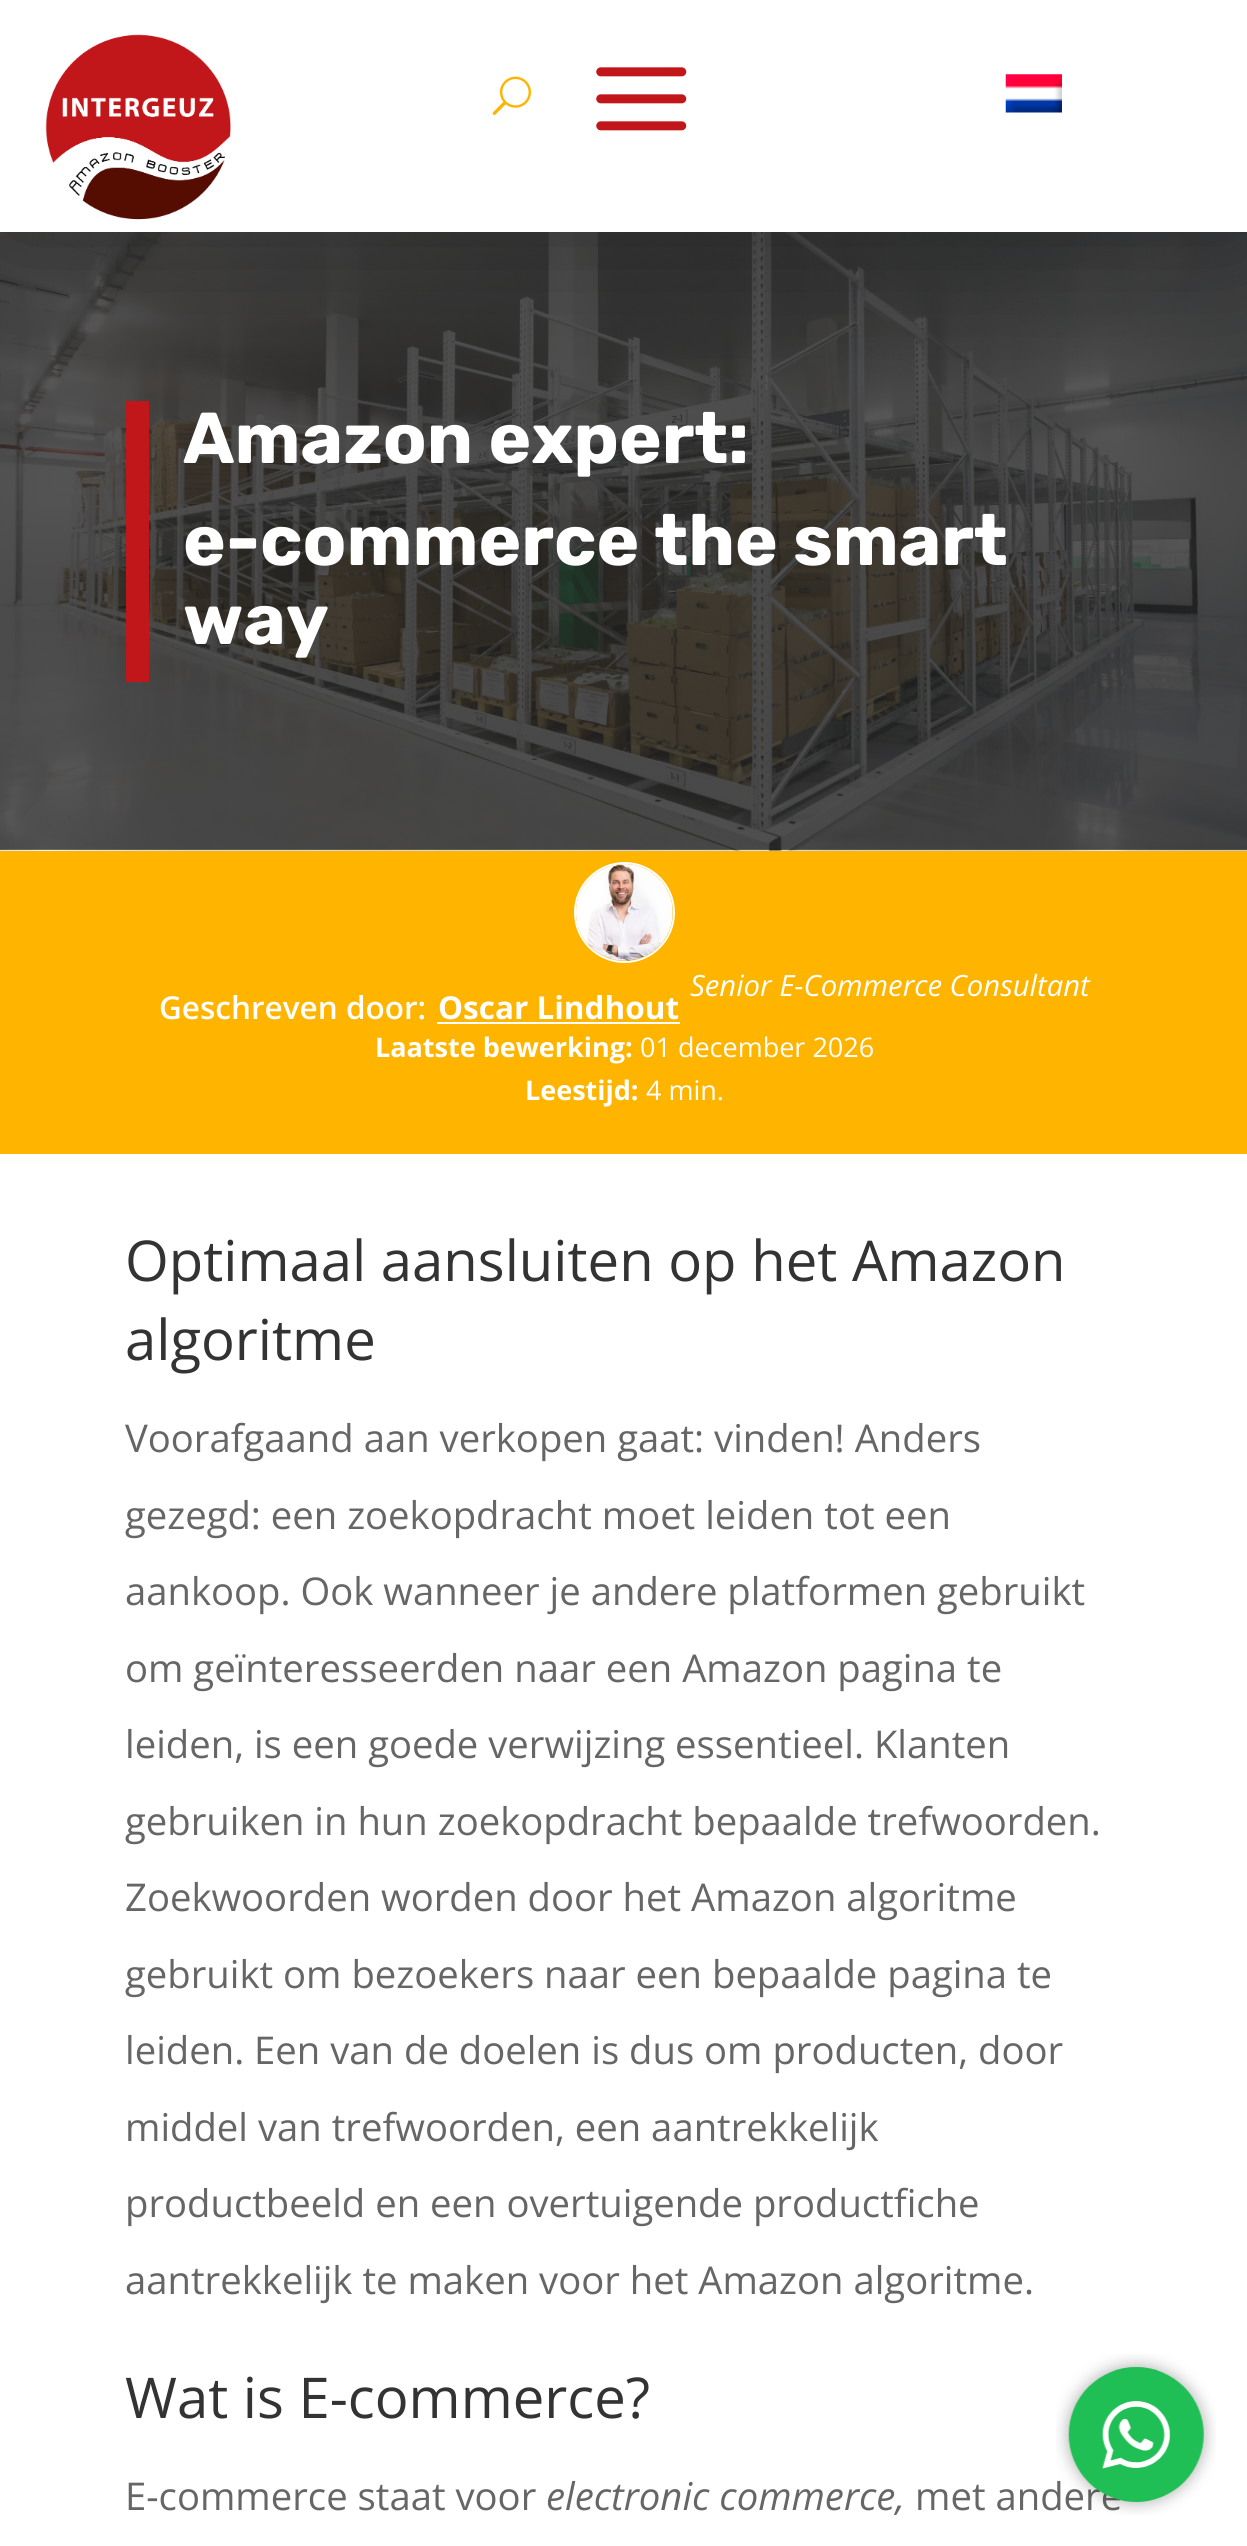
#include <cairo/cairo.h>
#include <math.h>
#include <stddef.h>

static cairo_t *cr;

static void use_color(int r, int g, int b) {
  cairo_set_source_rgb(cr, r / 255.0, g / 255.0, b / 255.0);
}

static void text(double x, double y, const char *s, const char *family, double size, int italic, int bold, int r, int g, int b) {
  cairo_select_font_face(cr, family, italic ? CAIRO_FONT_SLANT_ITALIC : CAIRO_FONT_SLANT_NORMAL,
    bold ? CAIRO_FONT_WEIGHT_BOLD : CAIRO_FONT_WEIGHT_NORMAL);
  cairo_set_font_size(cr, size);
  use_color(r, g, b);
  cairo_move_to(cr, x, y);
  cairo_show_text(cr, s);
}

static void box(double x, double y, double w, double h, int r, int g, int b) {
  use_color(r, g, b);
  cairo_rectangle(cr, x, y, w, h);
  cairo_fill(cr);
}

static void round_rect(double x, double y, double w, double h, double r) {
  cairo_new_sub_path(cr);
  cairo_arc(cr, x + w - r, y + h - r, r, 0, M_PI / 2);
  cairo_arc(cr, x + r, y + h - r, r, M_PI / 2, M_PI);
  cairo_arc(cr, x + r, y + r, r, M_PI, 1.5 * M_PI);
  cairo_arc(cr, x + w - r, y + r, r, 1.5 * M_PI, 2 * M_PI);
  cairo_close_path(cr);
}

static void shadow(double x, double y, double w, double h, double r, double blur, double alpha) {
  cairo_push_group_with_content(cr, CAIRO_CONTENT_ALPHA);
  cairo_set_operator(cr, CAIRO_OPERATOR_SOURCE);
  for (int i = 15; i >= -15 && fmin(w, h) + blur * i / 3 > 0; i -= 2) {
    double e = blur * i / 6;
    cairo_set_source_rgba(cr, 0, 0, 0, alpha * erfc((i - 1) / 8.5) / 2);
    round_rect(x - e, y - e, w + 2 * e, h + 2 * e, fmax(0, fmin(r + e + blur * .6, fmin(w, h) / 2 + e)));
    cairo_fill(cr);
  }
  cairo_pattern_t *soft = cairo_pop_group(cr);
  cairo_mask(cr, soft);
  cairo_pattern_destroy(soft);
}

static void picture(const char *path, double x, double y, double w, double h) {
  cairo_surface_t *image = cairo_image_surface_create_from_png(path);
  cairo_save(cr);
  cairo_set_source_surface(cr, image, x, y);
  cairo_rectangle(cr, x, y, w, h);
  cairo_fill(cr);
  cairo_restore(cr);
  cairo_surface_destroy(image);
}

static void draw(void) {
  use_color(255, 255, 255);
  cairo_paint(cr);
  picture("img_05.png", 0, 232, 1247, 619);
  box(126, 401, 23, 281, 193, 23, 26);
  use_color(0, 0, 0);
  shadow(0, 5, 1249, 231, 0, 67.5, 0.3);
  box(0, 0, 1247, 232, 255, 255, 255);
  picture("img_01.png", 45, 34, 186, 186);
  picture("img_02.png", 492, 76, 39, 39);
  picture("img_03.png", 596, 67, 91, 64);
  picture("img_04.png", 1005, 74, 57, 39);
  box(0, 851, 1247, 303, 255, 180, 0);
  cairo_arc(cr, 624.5, 912.5, 49.5, 0, 2 * M_PI);
  use_color(255, 255, 255);
  cairo_stroke(cr);
  picture("img_06.png", 576, 864, 97, 97);
  box(437, 1022, 243, 2, 255, 255, 255);
  text(183, 463, "Amazon expert:", "Rubik", 72, 0, 1, 255, 255, 255);
  text(183, 565, "e-commerce the smart", "Rubik", 72, 0, 1, 255, 255, 255);
  text(183, 644, "way", "Rubik", 72, 0, 1, 255, 255, 255);
  text(690, 996, "Senior E-Commerce Consultant", "Open Sans", 29.25, 1, 0, 255, 255, 255);
  text(159, 1019, "Geschreven door:", "Open Sans SemiBold", 31.5, 0, 0, 255, 255, 255);
  text(438, 1019, "Oscar Lindhout", "Open Sans", 31.5, 0, 1, 255, 255, 255);
  text(375, 1057, "Laatste bewerking:", "Open Sans", 27, 0, 1, 255, 255, 255);
  text(640, 1057, "01 december 2026", "Open Sans", 27, 0, 0, 255, 255, 255);
  text(525, 1100, "Leestijd:", "Open Sans", 27, 0, 1, 255, 255, 255);
  text(646, 1100, "4 min.", "Open Sans", 27, 0, 0, 255, 255, 255);
  text(125, 1281, "Optimaal aansluiten op het Amazon", "Open Sans", 56.25, 0, 0, 51, 51, 51);
  text(125, 1360, "algoritme", "Open Sans", 56.25, 0, 0, 51, 51, 51);
  text(125, 1452, "Voorafgaand aan verkopen gaat: vinden! Anders", "Open Sans", 38.25, 0, 0, 102, 102, 102);
  text(125, 1529, "gezegd: een zoekopdracht moet leiden tot een", "Open Sans", 38.25, 0, 0, 102, 102, 102);
  text(125, 1605, "aankoop. Ook wanneer je andere platformen gebruikt", "Open Sans", 38.25, 0, 0, 102, 102, 102);
  text(125, 1682, "om geïnteresseerden naar een Amazon pagina te", "Open Sans", 38.25, 0, 0, 102, 102, 102);
  text(125, 1758, "leiden, is een goede verwijzing essentieel. Klanten", "Open Sans", 38.25, 0, 0, 102, 102, 102);
  text(125, 1835, "gebruiken in hun zoekopdracht bepaalde trefwoorden.", "Open Sans", 38.25, 0, 0, 102, 102, 102);
  text(125, 1911, "Zoekwoorden worden door het Amazon algoritme", "Open Sans", 38.25, 0, 0, 102, 102, 102);
  text(125, 1988, "gebruikt om bezoekers naar een bepaalde pagina te", "Open Sans", 38.25, 0, 0, 102, 102, 102);
  text(125, 2064, "leiden. Een van de doelen is dus om producten, door", "Open Sans", 38.25, 0, 0, 102, 102, 102);
  text(125, 2141, "middel van trefwoorden, een aantrekkelijk", "Open Sans", 38.25, 0, 0, 102, 102, 102);
  text(125, 2217, "productbeeld en een overtuigende productfiche", "Open Sans", 38.25, 0, 0, 102, 102, 102);
  text(125, 2294, "aantrekkelijk te maken voor het Amazon algoritme.", "Open Sans", 38.25, 0, 0, 102, 102, 102);
  text(125, 2418, "Wat is E-commerce?", "Open Sans", 56.25, 0, 0, 51, 51, 51);
  text(125, 2510, "E-commerce staat voor", "Open Sans", 38.25, 0, 0, 102, 102, 102);
  text(546, 2510, "electronic commerce,", "Open Sans", 38.25, 1, 0, 102, 102, 102);
  text(915, 2510, "met andere", "Open Sans", 38.25, 0, 0, 102, 102, 102);
  picture("img_07.png", 1056, 2354, 160, 161);
}

int main(void) {
  cairo_surface_t *surface = cairo_image_surface_create(CAIRO_FORMAT_RGB24, 1247, 2546);
  cr = cairo_create(surface);
  cairo_font_options_t *options = cairo_font_options_create();
  cairo_font_options_set_hint_metrics(options, CAIRO_HINT_METRICS_OFF);
  cairo_font_options_set_hint_style(options, CAIRO_HINT_STYLE_NONE);
  cairo_set_font_options(cr, options);
  cairo_set_miter_limit(cr, 4);
  draw();
  cairo_surface_write_to_png(surface, "out.png");
  cairo_font_options_destroy(options);
  cairo_destroy(cr);
  cairo_surface_destroy(surface);
  return 0;
}
